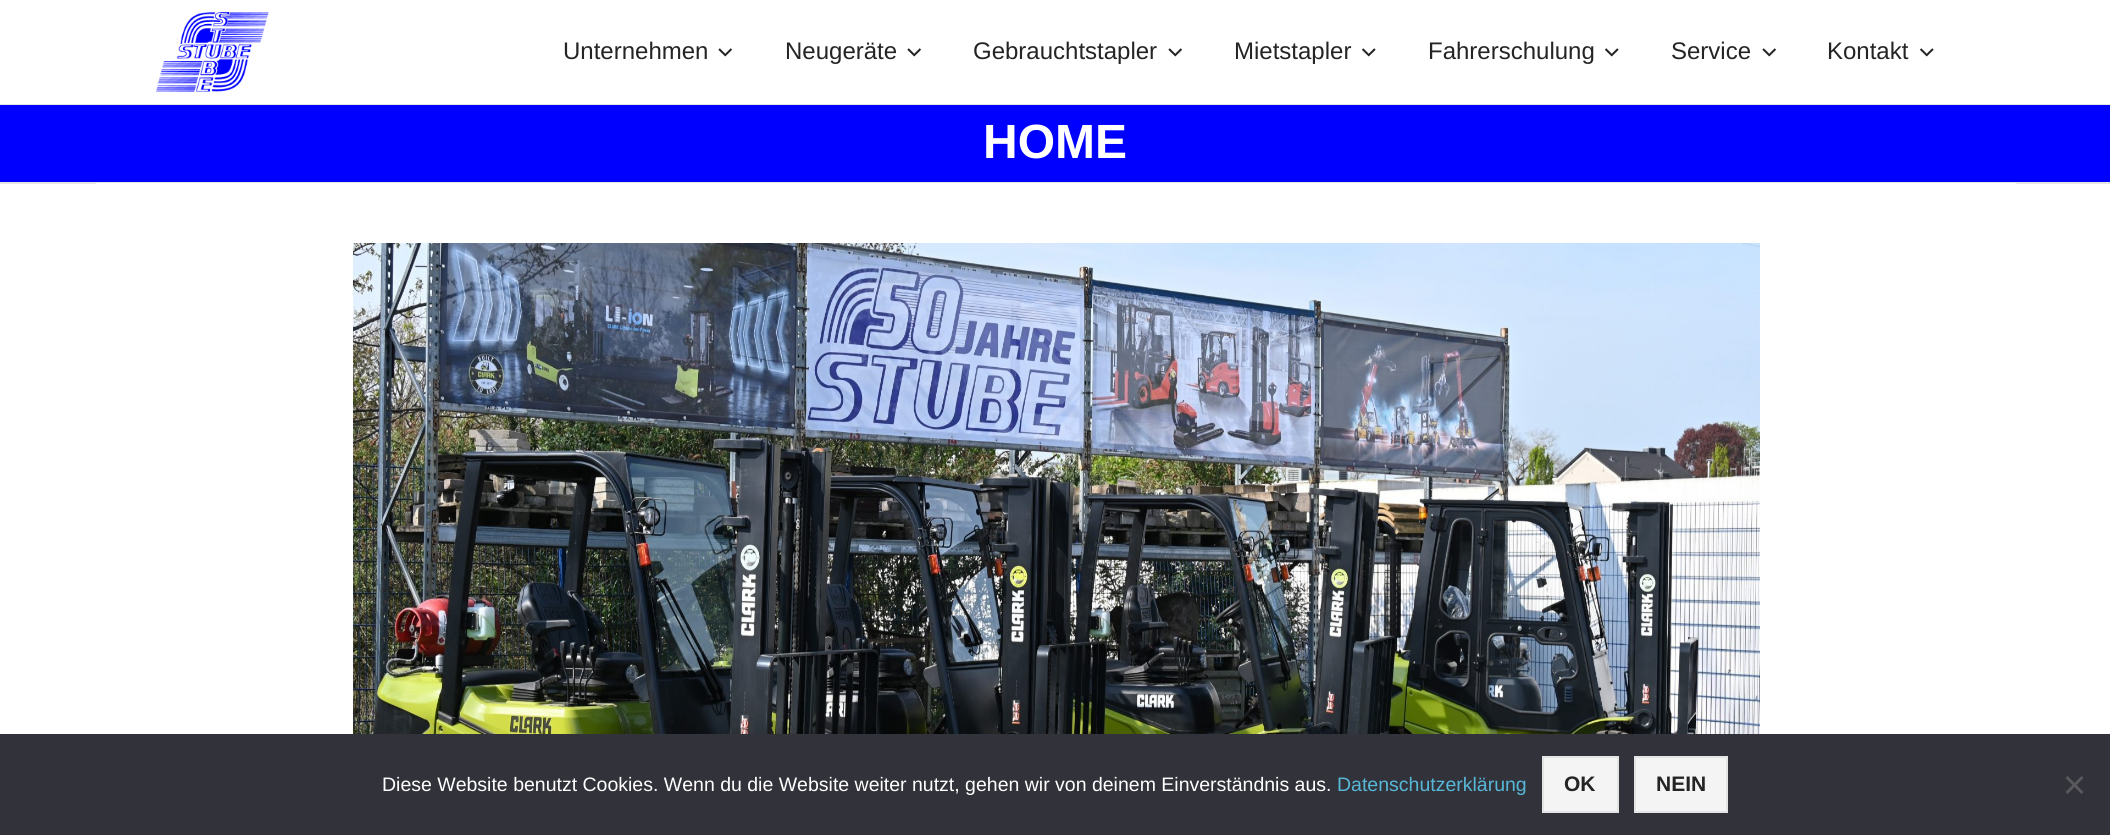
#include <cairo/cairo.h>
#include <math.h>
#include <stddef.h>

static cairo_t *cr;

static void use_color(int r, int g, int b) {
  cairo_set_source_rgb(cr, r / 255.0, g / 255.0, b / 255.0);
}

static void text(double x, double y, const char *s, const char *family, double size, int italic, int bold, int r, int g, int b) {
  cairo_select_font_face(cr, family, italic ? CAIRO_FONT_SLANT_ITALIC : CAIRO_FONT_SLANT_NORMAL,
    bold ? CAIRO_FONT_WEIGHT_BOLD : CAIRO_FONT_WEIGHT_NORMAL);
  cairo_set_font_size(cr, size);
  use_color(r, g, b);
  cairo_move_to(cr, x, y);
  cairo_show_text(cr, s);
}

static void box(double x, double y, double w, double h, int r, int g, int b) {
  use_color(r, g, b);
  cairo_rectangle(cr, x, y, w, h);
  cairo_fill(cr);
}

static void picture(const char *path, double x, double y, double w, double h) {
  cairo_surface_t *image = cairo_image_surface_create_from_png(path);
  cairo_save(cr);
  cairo_set_source_surface(cr, image, x, y);
  cairo_rectangle(cr, x, y, w, h);
  cairo_fill(cr);
  cairo_restore(cr);
  cairo_surface_destroy(image);
}

static void draw(void) {
  use_color(255, 255, 255);
  cairo_paint(cr);
  box(0, 104, 2110, 1, 228, 228, 228);
  picture("img_01.png", 156, 12, 113, 80);
  picture("img_02.png", 718, 48, 14, 9);
  picture("img_02.png", 907, 48, 14, 9);
  picture("img_02.png", 1168, 48, 14, 9);
  picture("img_03.png", 1362, 48, 14, 9);
  picture("img_03.png", 1605, 48, 14, 9);
  picture("img_02.png", 1762, 48, 14, 9);
  picture("img_03.png", 1920, 48, 14, 9);
  box(0, 105, 2110, 77, 0, 0, 255);
  box(0, 182, 2110, 2, 229, 229, 229);
  box(96, 183, 1920, 1, 255, 255, 255);
  picture("img_04.png", 353, 243, 1407, 491);
  box(0, 734, 2110, 101, 50, 50, 58);
  use_color(244, 244, 244);
  cairo_rectangle(cr, 1543, 757, 75, 55);
  cairo_fill_preserve(cr);
  use_color(228, 228, 228);
  cairo_stroke(cr);
  use_color(244, 244, 244);
  cairo_rectangle(cr, 1635, 757, 92, 55);
  cairo_fill_preserve(cr);
  use_color(228, 228, 228);
  cairo_stroke(cr);
  use_color(89, 89, 93);
  cairo_new_path(cr);
  cairo_move_to(cr, 2081.5, 776);
  cairo_line_to(cr, 2083.5, 778);
  cairo_line_to(cr, 2067.5, 794);
  cairo_line_to(cr, 2065.5, 792);
  cairo_close_path(cr);
  cairo_fill(cr);
  cairo_new_path(cr);
  cairo_move_to(cr, 2065.5, 778);
  cairo_line_to(cr, 2067.5, 776);
  cairo_line_to(cr, 2083.5, 792);
  cairo_line_to(cr, 2081.5, 794);
  cairo_close_path(cr);
  cairo_fill(cr);
  text(563, 59, "Unternehmen", "Liberation Sans", 24, 0, 0, 36, 36, 36);
  text(785, 59, "Neugeräte", "Liberation Sans", 24, 0, 0, 36, 36, 36);
  text(973, 59, "Gebrauchtstapler", "Liberation Sans", 24, 0, 0, 36, 36, 36);
  text(1234, 59, "Mietstapler", "Liberation Sans", 24, 0, 0, 36, 36, 36);
  text(1428, 59, "Fahrerschulung", "Liberation Sans", 24, 0, 0, 36, 36, 36);
  text(1671, 59, "Service", "Liberation Sans", 24, 0, 0, 36, 36, 36);
  text(1827, 59, "Kontakt", "Liberation Sans", 24, 0, 0, 36, 36, 36);
  text(983, 158, "HOME", "Liberation Sans", 48, 0, 1, 255, 255, 255);
  text(382, 791, "Diese Website benutzt Cookies. Wenn du die Website weiter nutzt, gehen wir von deinem Einverständnis aus.", "Liberation Sans", 19.5, 0, 0, 255, 255, 255);
  text(1337, 791, "Datenschutzerklärung", "Liberation Sans", 19.5, 0, 0, 87, 183, 215);
  text(1564, 791, "OK", "Liberation Sans", 21, 0, 1, 36, 36, 36);
  text(1656, 791, "NEIN", "Liberation Sans", 21, 0, 1, 36, 36, 36);
}

int main(void) {
  cairo_surface_t *surface = cairo_image_surface_create(CAIRO_FORMAT_RGB24, 2110, 835);
  cr = cairo_create(surface);
  cairo_font_options_t *options = cairo_font_options_create();
  cairo_font_options_set_hint_metrics(options, CAIRO_HINT_METRICS_OFF);
  cairo_font_options_set_hint_style(options, CAIRO_HINT_STYLE_NONE);
  cairo_set_font_options(cr, options);
  cairo_set_miter_limit(cr, 4);
  draw();
  cairo_surface_write_to_png(surface, "out.png");
  cairo_font_options_destroy(options);
  cairo_destroy(cr);
  cairo_surface_destroy(surface);
  return 0;
}
